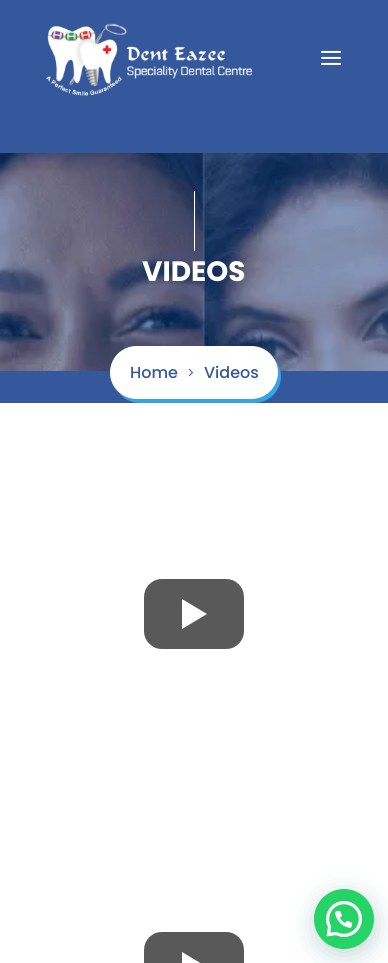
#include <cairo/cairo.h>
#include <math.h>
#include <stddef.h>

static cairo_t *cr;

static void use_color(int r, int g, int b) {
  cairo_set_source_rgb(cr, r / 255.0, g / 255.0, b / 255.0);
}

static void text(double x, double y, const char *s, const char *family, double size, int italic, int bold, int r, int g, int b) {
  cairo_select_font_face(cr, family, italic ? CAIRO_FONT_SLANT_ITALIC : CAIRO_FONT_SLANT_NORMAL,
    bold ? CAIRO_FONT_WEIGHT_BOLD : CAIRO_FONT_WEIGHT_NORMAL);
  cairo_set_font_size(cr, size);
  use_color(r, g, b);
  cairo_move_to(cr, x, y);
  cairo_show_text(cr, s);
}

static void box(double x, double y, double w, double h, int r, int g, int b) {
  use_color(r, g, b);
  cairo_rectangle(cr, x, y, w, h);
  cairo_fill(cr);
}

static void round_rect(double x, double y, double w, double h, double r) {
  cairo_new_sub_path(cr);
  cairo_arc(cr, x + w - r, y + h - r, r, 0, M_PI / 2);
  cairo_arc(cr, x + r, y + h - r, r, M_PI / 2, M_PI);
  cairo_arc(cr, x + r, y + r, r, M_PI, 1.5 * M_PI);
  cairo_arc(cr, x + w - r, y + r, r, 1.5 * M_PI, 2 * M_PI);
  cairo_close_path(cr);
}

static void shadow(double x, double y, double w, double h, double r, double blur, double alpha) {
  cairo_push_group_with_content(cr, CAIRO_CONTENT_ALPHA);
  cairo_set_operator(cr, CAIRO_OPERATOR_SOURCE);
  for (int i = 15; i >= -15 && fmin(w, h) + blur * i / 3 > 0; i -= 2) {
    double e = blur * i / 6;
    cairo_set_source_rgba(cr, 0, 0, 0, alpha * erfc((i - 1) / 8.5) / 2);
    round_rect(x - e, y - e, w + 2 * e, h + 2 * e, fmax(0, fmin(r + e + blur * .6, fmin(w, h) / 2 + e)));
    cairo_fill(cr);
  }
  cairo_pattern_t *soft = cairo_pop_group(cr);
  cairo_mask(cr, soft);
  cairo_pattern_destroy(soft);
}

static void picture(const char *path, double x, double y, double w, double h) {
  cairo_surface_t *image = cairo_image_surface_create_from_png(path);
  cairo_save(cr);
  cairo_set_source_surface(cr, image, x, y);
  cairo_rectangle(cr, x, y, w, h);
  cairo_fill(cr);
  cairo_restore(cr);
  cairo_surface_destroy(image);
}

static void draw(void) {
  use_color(53, 88, 156);
  cairo_paint(cr);
  picture("img_01.png", 46, 23, 207, 73);
  picture("img_02.png", 321, 50, 20, 15);
  picture("img_03.png", 0, 153, 388, 218);
  box(194, 191, 1, 60, 255, 255, 255);
  use_color(54, 164, 229);
  cairo_new_path(cr);
  cairo_move_to(cr, 117, 390);
  cairo_curve_to(cr, 122, 398, 130, 403, 140, 403);
  cairo_line_to(cr, 254, 403);
  cairo_curve_to(cr, 269, 403, 281, 391, 281, 376);
  cairo_curve_to(cr, 281, 370, 278, 363, 274, 359);
  cairo_curve_to(cr, 277, 363, 278, 367, 278, 372);
  cairo_curve_to(cr, 278, 387, 266, 399, 252, 399);
  cairo_line_to(cr, 136, 399);
  cairo_curve_to(cr, 129, 399, 122, 396, 117, 390);
  cairo_close_path(cr);
  cairo_fill(cr);
  use_color(255, 255, 255);
  round_rect(110, 346, 168, 53, 26.5);
  cairo_fill(cr);
  picture("img_04.png", 188, 368, 5, 9);
  box(0, 403, 388, 560, 255, 255, 255);
  picture("img_05.png", 144, 579, 100, 70);
  picture("img_06.png", 144, 932, 100, 31);
  use_color(7, 94, 84);
  shadow(315, 895, 60, 60, 30, 12, 0.24);
  use_color(37, 211, 102);
  cairo_arc(cr, 344, 919, 30, 0, 2 * M_PI);
  cairo_fill(cr);
  picture("img_07.png", 326, 901, 36, 36);
  text(142, 281, "VIDEOS", "Poppins", 28, 0, 1, 255, 255, 255);
  text(130, 378, "Home", "Poppins Medium", 16, 0, 0, 53, 88, 156);
  text(204, 378, "Videos", "Poppins Medium", 16, 0, 0, 53, 88, 156);
}

int main(void) {
  cairo_surface_t *surface = cairo_image_surface_create(CAIRO_FORMAT_RGB24, 388, 963);
  cr = cairo_create(surface);
  cairo_font_options_t *options = cairo_font_options_create();
  cairo_font_options_set_hint_metrics(options, CAIRO_HINT_METRICS_OFF);
  cairo_font_options_set_hint_style(options, CAIRO_HINT_STYLE_NONE);
  cairo_set_font_options(cr, options);
  cairo_set_miter_limit(cr, 4);
  draw();
  cairo_surface_write_to_png(surface, "out.png");
  cairo_font_options_destroy(options);
  cairo_destroy(cr);
  cairo_surface_destroy(surface);
  return 0;
}
